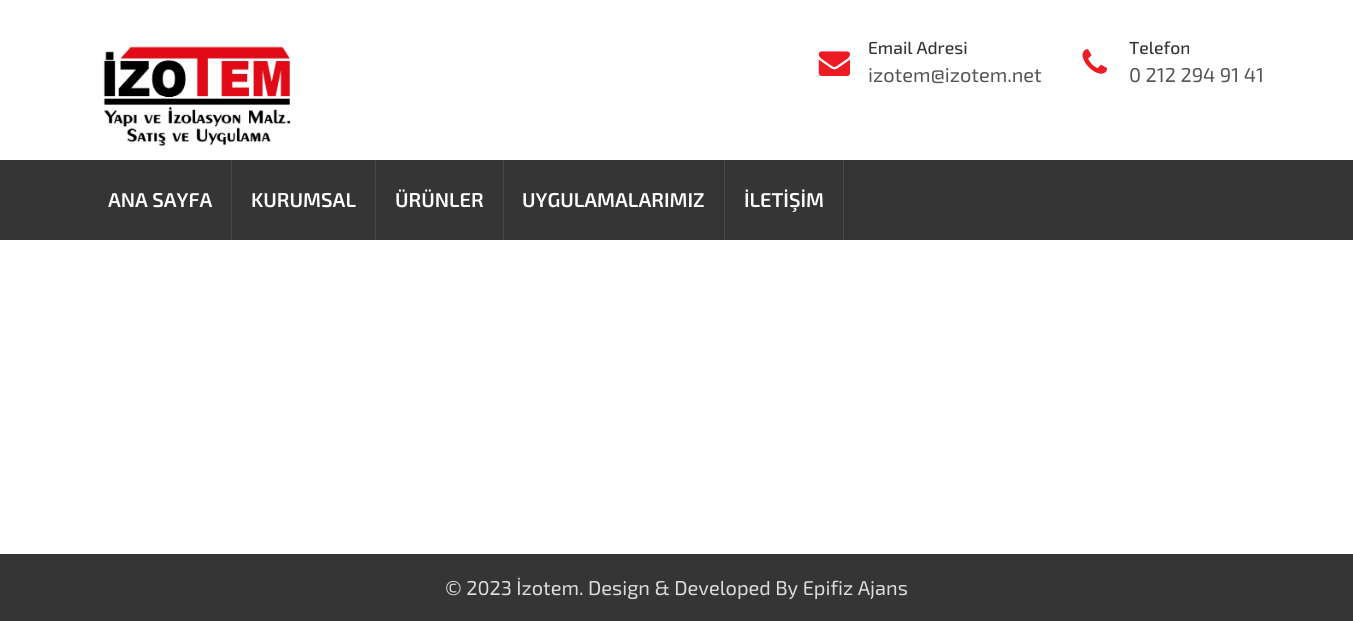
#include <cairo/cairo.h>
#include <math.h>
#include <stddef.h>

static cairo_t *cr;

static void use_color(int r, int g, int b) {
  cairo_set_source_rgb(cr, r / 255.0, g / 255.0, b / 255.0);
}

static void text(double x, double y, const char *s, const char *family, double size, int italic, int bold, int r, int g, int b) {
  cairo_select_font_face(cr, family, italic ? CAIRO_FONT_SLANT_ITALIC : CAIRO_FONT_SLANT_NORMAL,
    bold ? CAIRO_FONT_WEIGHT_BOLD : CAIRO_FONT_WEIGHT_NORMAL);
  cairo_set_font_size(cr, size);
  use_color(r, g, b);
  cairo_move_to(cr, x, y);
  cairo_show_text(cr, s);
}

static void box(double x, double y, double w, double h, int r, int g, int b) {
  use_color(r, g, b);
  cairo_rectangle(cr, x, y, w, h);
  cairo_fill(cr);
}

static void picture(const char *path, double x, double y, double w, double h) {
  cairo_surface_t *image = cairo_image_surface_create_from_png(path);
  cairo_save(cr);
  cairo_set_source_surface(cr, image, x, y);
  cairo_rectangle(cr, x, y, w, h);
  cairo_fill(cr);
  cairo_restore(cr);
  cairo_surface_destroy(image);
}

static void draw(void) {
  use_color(255, 255, 255);
  cairo_paint(cr);
  picture("img_01.png", 103, 45, 189, 101);
  picture("img_02.png", 818, 51, 32, 25);
  picture("img_03.png", 1082, 49, 25, 25);
  box(0, 160, 1353, 80, 53, 53, 53);
  box(231, 160, 1, 80, 72, 70, 70);
  box(375, 160, 1, 80, 72, 70, 70);
  box(503, 160, 1, 80, 72, 70, 70);
  box(724, 160, 1, 80, 72, 70, 70);
  box(843, 160, 1, 80, 72, 70, 70);
  box(0, 554, 1353, 67, 53, 53, 53);
  text(868, 54, "Email Adresi", "Exo 2 Medium", 17.5, 0, 0, 53, 53, 53);
  text(868, 82, "izotem@izotem.net", "Exo 2", 20, 0, 0, 85, 85, 85);
  text(1129, 54, "Telefon", "Exo 2 Medium", 17.5, 0, 0, 53, 53, 53);
  text(1129, 82, "0 212 294 91 41", "Exo 2", 20, 0, 0, 85, 85, 85);
  text(108, 207, "ANA SAYFA", "Exo 2 SemiBold", 20, 0, 0, 255, 255, 255);
  text(251, 207, "KURUMSAL", "Exo 2 SemiBold", 20, 0, 0, 255, 255, 255);
  text(395, 207, "ÜRÜNLER", "Exo 2 SemiBold", 20, 0, 0, 255, 255, 255);
  text(522, 207, "UYGULAMALARIMIZ", "Exo 2 SemiBold", 20, 0, 0, 255, 255, 255);
  text(744, 207, "İLETİŞİM", "Exo 2 SemiBold", 20, 0, 0, 255, 255, 255);
  text(445, 595, "© 2023 İzotem. Design & Developed By Epifiz Ajans", "Exo 2", 20, 0, 0, 221, 221, 221);
}

int main(void) {
  cairo_surface_t *surface = cairo_image_surface_create(CAIRO_FORMAT_RGB24, 1353, 621);
  cr = cairo_create(surface);
  cairo_font_options_t *options = cairo_font_options_create();
  cairo_font_options_set_hint_metrics(options, CAIRO_HINT_METRICS_OFF);
  cairo_font_options_set_hint_style(options, CAIRO_HINT_STYLE_NONE);
  cairo_set_font_options(cr, options);
  cairo_set_miter_limit(cr, 4);
  draw();
  cairo_surface_write_to_png(surface, "out.png");
  cairo_font_options_destroy(options);
  cairo_destroy(cr);
  cairo_surface_destroy(surface);
  return 0;
}
